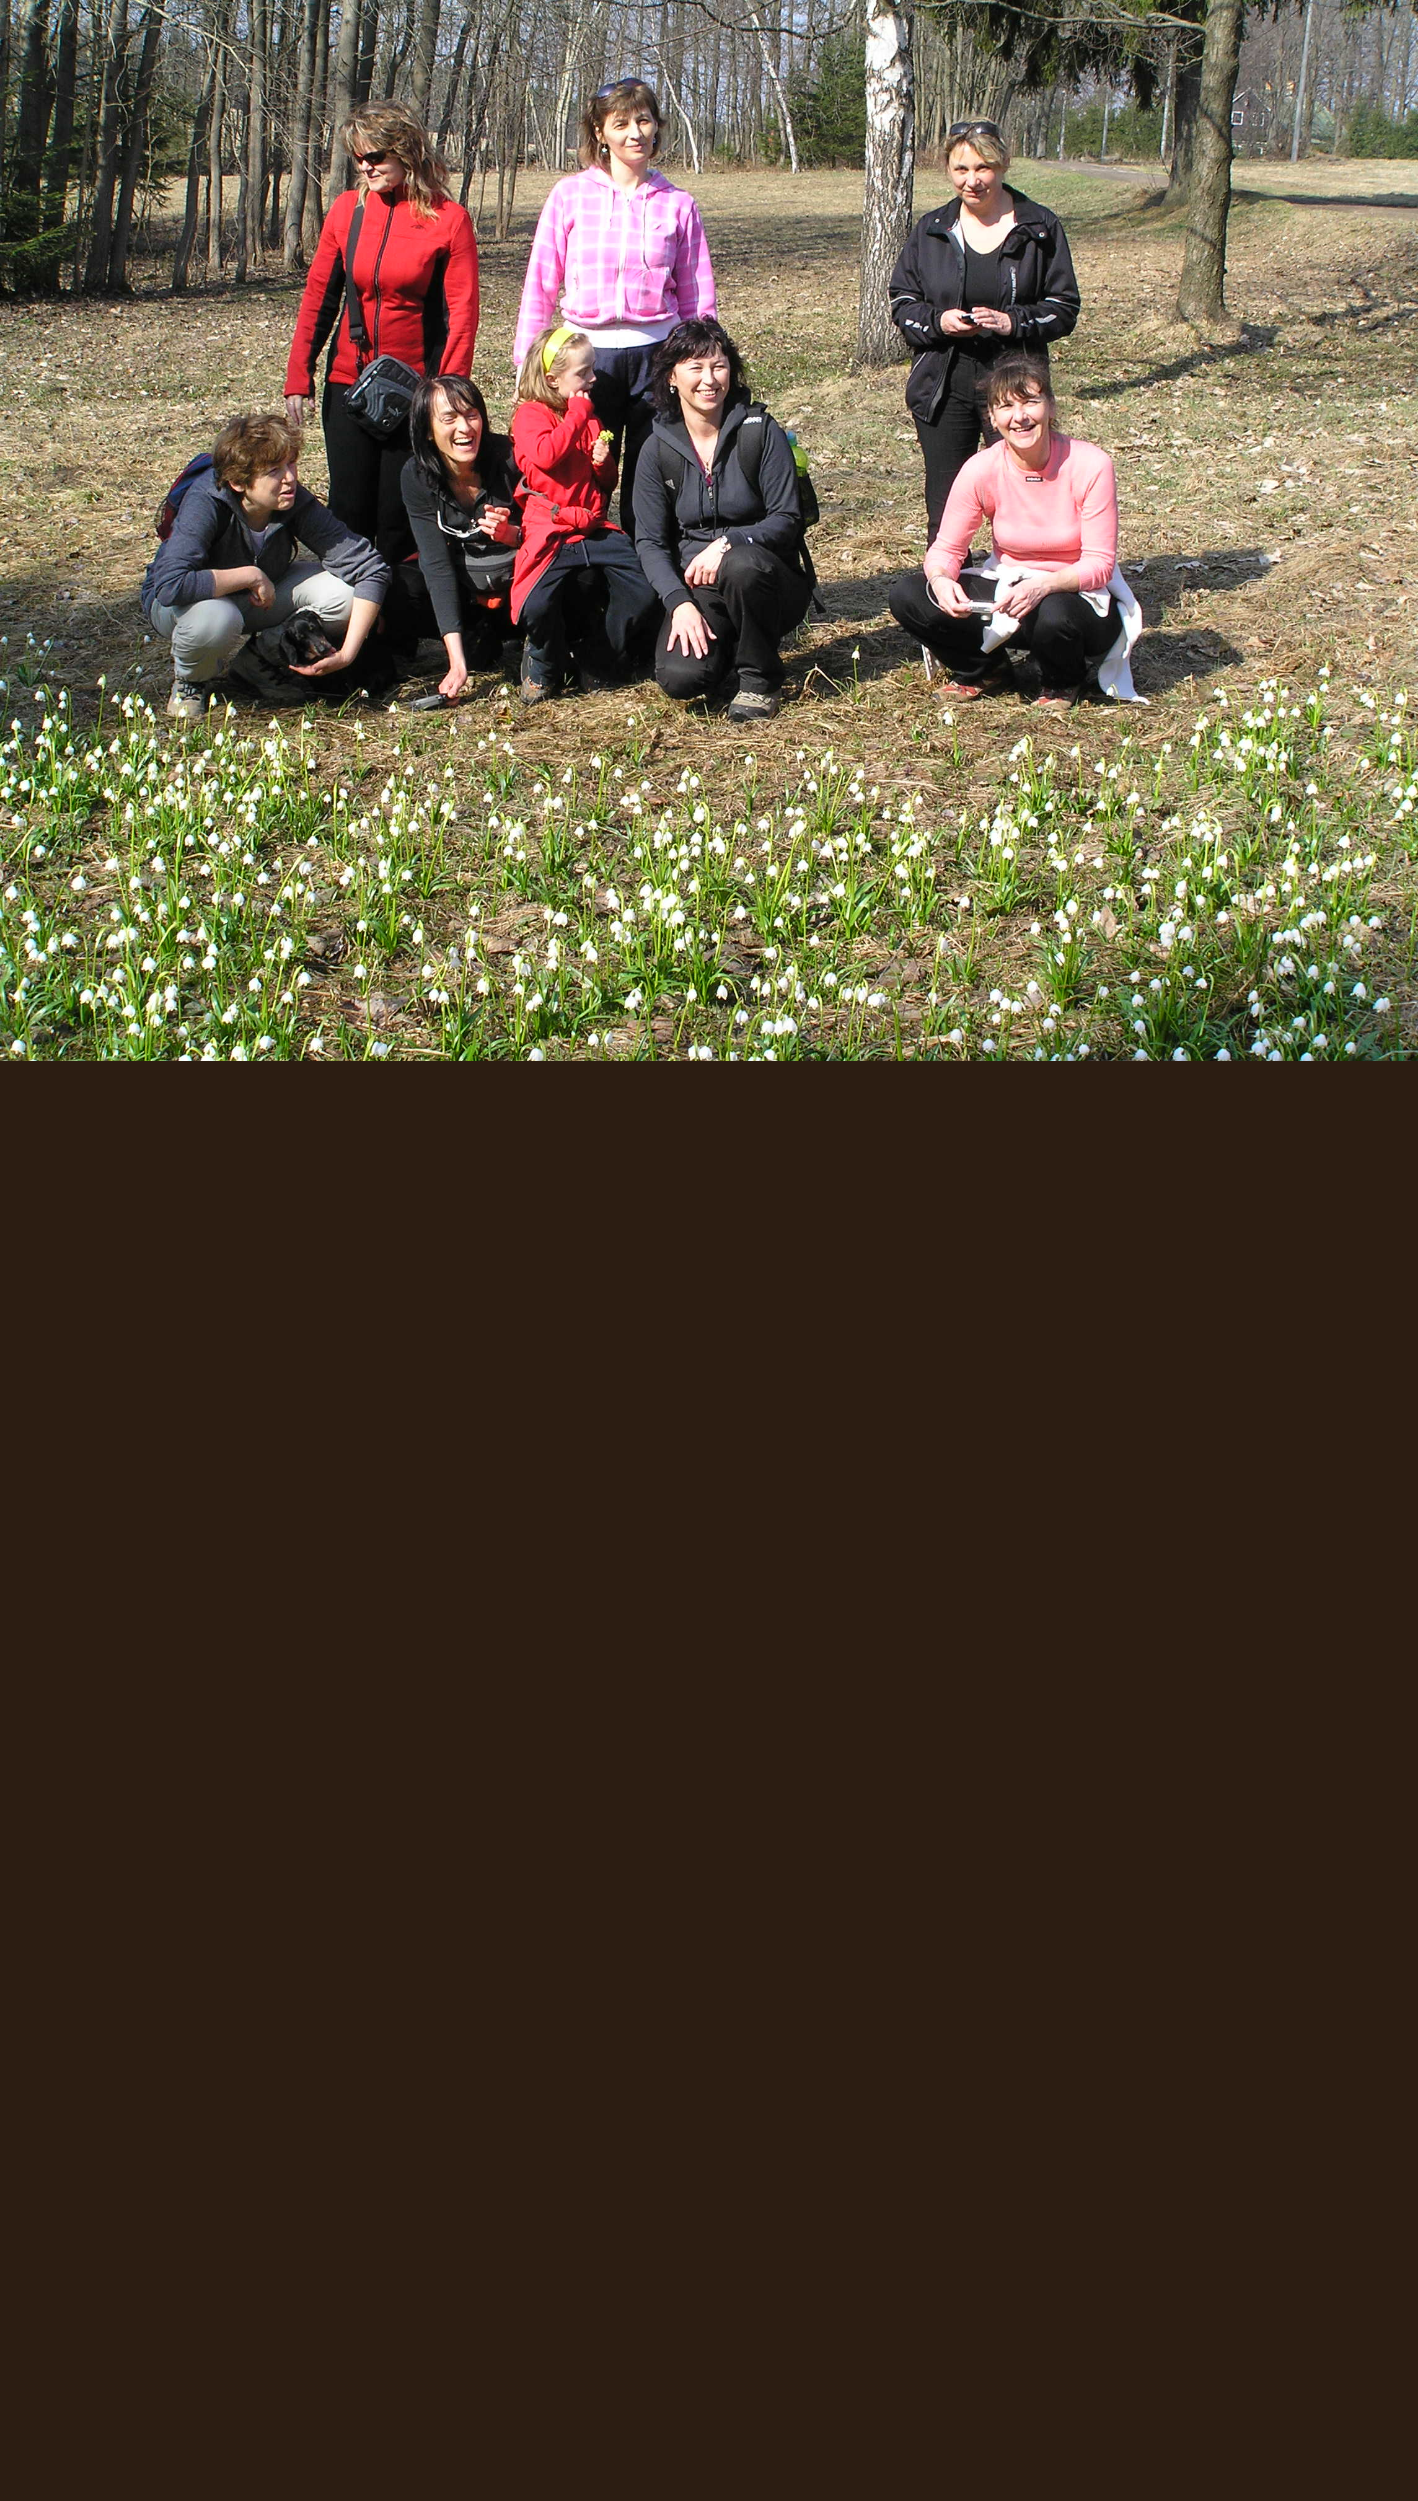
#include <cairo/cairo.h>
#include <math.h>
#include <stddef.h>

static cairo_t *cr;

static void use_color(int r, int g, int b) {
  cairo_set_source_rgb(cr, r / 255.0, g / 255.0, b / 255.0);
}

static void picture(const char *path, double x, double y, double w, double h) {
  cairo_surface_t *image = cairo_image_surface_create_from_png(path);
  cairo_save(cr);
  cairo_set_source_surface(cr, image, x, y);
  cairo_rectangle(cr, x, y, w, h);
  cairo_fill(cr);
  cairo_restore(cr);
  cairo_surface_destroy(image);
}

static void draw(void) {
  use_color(44, 29, 18);
  cairo_paint(cr);
  picture("img_01.png", 0, 0, 1418, 1061);
}

int main(void) {
  cairo_surface_t *surface = cairo_image_surface_create(CAIRO_FORMAT_RGB24, 1418, 2501);
  cr = cairo_create(surface);
  cairo_font_options_t *options = cairo_font_options_create();
  cairo_font_options_set_hint_metrics(options, CAIRO_HINT_METRICS_OFF);
  cairo_font_options_set_hint_style(options, CAIRO_HINT_STYLE_NONE);
  cairo_set_font_options(cr, options);
  cairo_set_miter_limit(cr, 4);
  draw();
  cairo_surface_write_to_png(surface, "out.png");
  cairo_font_options_destroy(options);
  cairo_destroy(cr);
  cairo_surface_destroy(surface);
  return 0;
}
